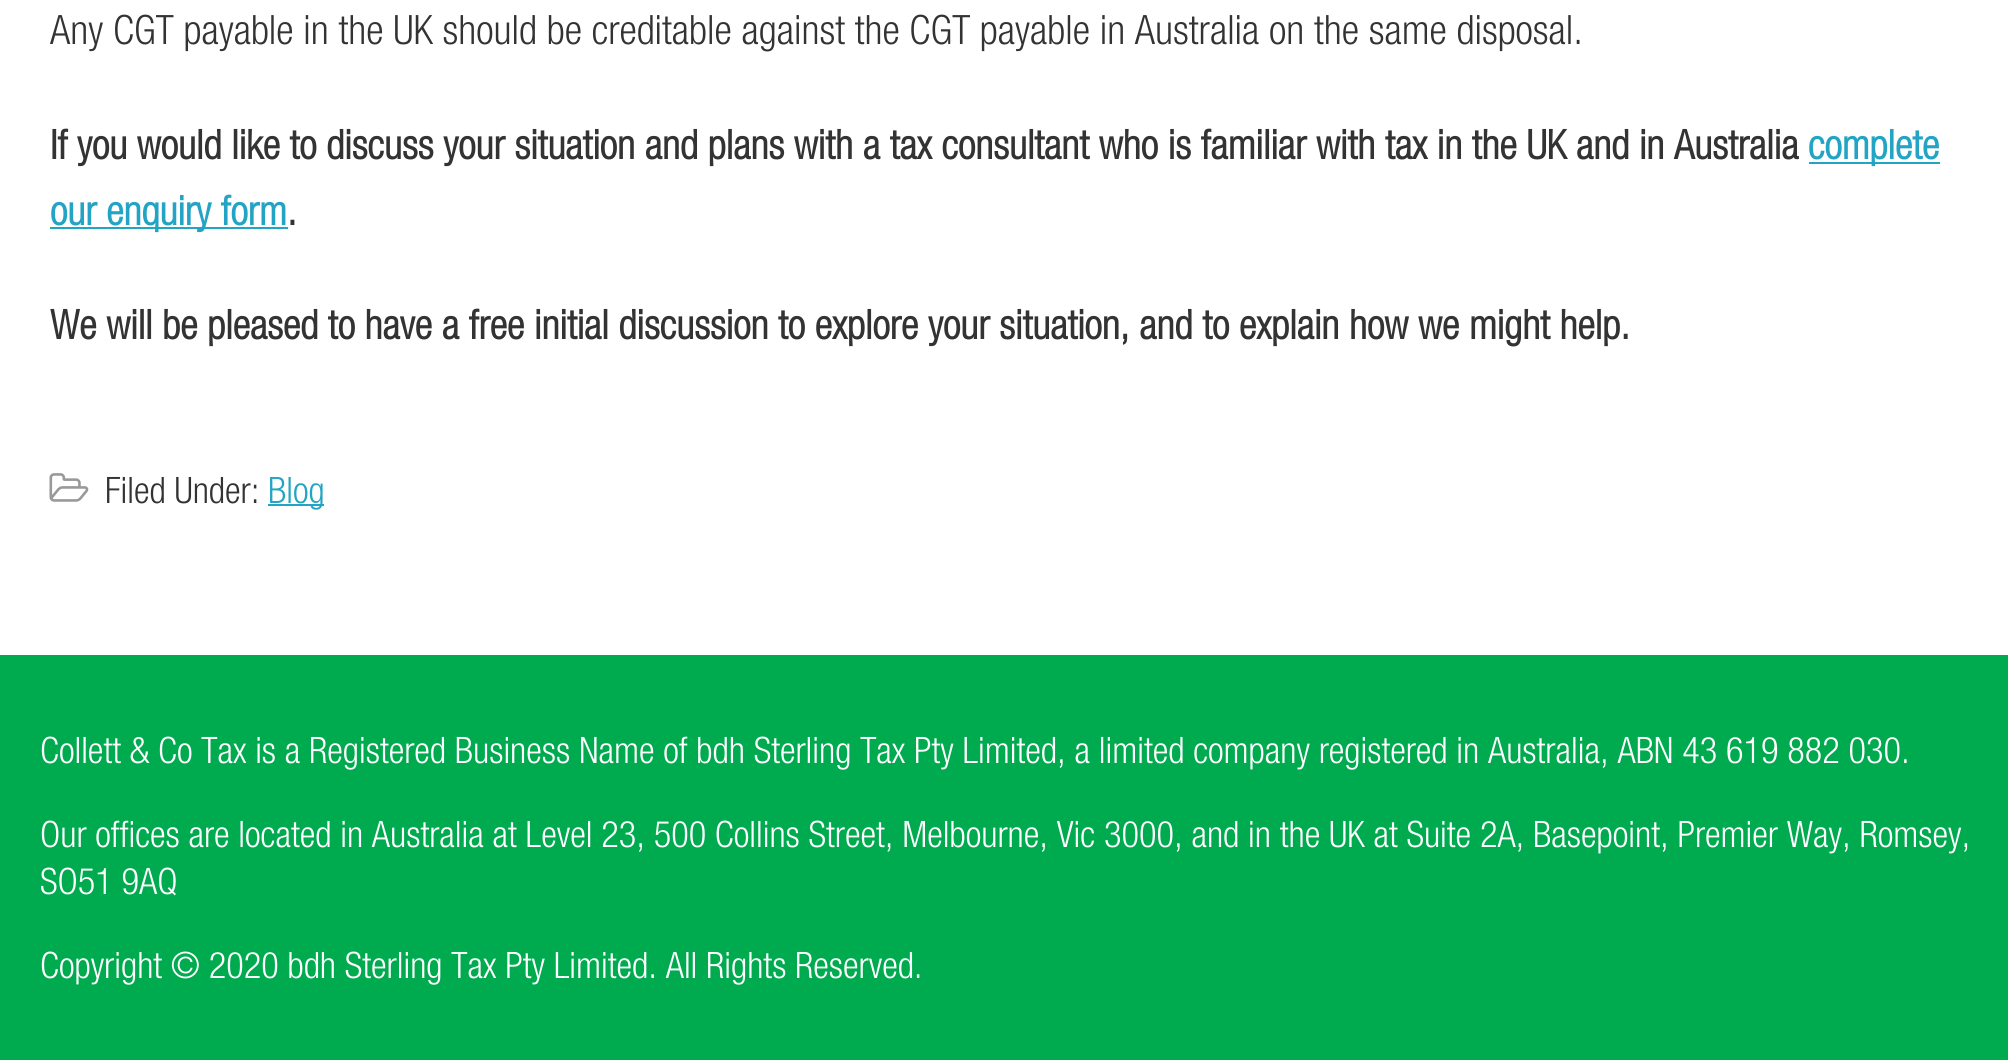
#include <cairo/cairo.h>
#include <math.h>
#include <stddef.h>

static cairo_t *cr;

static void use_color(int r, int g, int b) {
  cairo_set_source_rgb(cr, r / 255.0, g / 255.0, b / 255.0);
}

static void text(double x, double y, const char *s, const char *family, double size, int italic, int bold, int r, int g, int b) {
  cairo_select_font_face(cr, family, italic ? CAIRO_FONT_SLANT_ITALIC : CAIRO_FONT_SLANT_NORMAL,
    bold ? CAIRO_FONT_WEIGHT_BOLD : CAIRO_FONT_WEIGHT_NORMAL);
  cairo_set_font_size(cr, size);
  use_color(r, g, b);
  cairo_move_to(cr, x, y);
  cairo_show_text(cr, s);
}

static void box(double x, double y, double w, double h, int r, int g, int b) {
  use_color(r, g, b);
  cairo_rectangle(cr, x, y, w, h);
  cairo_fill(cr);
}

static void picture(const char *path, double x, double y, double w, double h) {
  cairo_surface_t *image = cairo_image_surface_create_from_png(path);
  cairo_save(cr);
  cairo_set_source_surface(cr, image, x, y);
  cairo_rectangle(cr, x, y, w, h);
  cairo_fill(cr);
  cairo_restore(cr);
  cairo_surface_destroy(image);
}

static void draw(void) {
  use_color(255, 255, 255);
  cairo_paint(cr);
  box(1809, 162, 131, 2, 35, 164, 196);
  box(50, 227, 238, 2, 35, 164, 196);
  picture("img_01.png", 49, 473, 40, 29);
  box(268, 504, 56, 2, 35, 164, 196);
  box(0, 655, 2008, 405, 0, 171, 79);
  text(50, 44, "Any CGT payable in the UK should be creditable against the CGT payable in Australia on the same disposal.", "Helvetica Neue Light", 40.5, 0, 0, 51, 51, 51);
  text(50, 159, "If you would like to discuss your situation and plans with a tax consultant who is familiar with tax in the UK and in Australia", "Helvetica Neue", 40.5, 0, 1, 51, 51, 51);
  text(1808, 159, "complete", "Helvetica Neue", 40.5, 0, 1, 35, 164, 196);
  text(50, 225, "our enquiry form", "Helvetica Neue", 40.5, 0, 1, 35, 164, 196);
  text(287, 225, ".", "Helvetica Neue", 40.5, 0, 1, 51, 51, 51);
  text(50, 339, "We will be pleased to have a free initial discussion to explore your situation, and to explain how we might help.", "Helvetica Neue", 40.5, 0, 1, 51, 51, 51);
  text(105, 503, "Filed Under:", "Helvetica Neue Light", 36.45, 0, 0, 51, 51, 51);
  text(268, 503, "Blog", "Helvetica Neue Light", 36.45, 0, 0, 35, 164, 196);
  text(40, 763, "Collett & Co Tax is a Registered Business Name of bdh Sterling Tax Pty Limited, a limited company registered in Australia, ABN 43 619 882 030.", "Helvetica Neue Light", 36.45, 0, 0, 255, 255, 255);
  text(40, 847, "Our offices are located in Australia at Level 23, 500 Collins Street, Melbourne, Vic 3000, and in the UK at Suite 2A, Basepoint, Premier Way, Romsey,", "Helvetica Neue Light", 36.45, 0, 0, 255, 255, 255);
  text(40, 894, "SO51 9AQ", "Helvetica Neue Light", 36.45, 0, 0, 255, 255, 255);
  text(40, 978, "Copyright © 2020 bdh Sterling Tax Pty Limited. All Rights Reserved.", "Helvetica Neue Light", 36.45, 0, 0, 255, 255, 255);
}

int main(void) {
  cairo_surface_t *surface = cairo_image_surface_create(CAIRO_FORMAT_RGB24, 2008, 1060);
  cr = cairo_create(surface);
  cairo_font_options_t *options = cairo_font_options_create();
  cairo_font_options_set_hint_metrics(options, CAIRO_HINT_METRICS_OFF);
  cairo_font_options_set_hint_style(options, CAIRO_HINT_STYLE_NONE);
  cairo_set_font_options(cr, options);
  cairo_set_miter_limit(cr, 4);
  draw();
  cairo_surface_write_to_png(surface, "out.png");
  cairo_font_options_destroy(options);
  cairo_destroy(cr);
  cairo_surface_destroy(surface);
  return 0;
}
